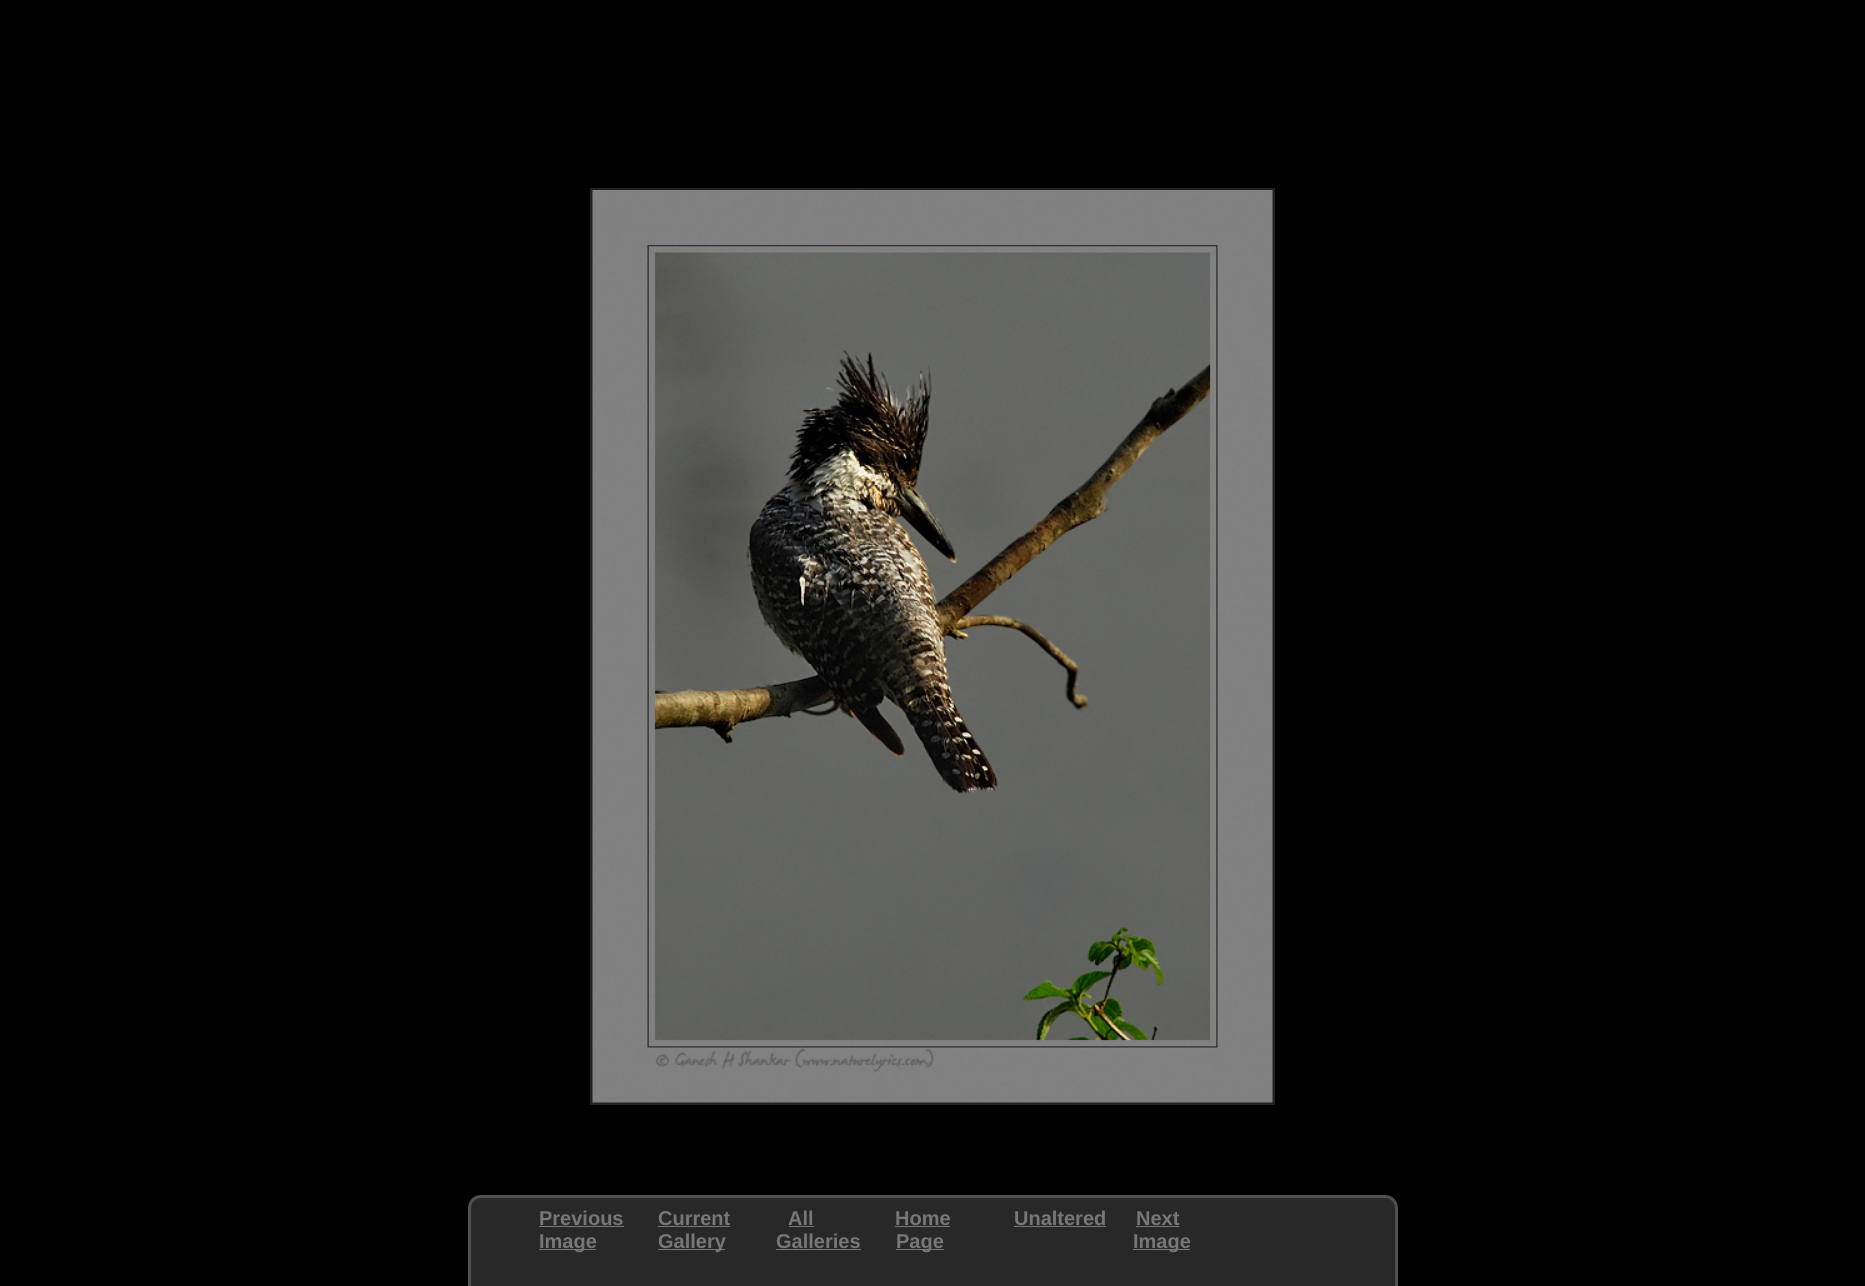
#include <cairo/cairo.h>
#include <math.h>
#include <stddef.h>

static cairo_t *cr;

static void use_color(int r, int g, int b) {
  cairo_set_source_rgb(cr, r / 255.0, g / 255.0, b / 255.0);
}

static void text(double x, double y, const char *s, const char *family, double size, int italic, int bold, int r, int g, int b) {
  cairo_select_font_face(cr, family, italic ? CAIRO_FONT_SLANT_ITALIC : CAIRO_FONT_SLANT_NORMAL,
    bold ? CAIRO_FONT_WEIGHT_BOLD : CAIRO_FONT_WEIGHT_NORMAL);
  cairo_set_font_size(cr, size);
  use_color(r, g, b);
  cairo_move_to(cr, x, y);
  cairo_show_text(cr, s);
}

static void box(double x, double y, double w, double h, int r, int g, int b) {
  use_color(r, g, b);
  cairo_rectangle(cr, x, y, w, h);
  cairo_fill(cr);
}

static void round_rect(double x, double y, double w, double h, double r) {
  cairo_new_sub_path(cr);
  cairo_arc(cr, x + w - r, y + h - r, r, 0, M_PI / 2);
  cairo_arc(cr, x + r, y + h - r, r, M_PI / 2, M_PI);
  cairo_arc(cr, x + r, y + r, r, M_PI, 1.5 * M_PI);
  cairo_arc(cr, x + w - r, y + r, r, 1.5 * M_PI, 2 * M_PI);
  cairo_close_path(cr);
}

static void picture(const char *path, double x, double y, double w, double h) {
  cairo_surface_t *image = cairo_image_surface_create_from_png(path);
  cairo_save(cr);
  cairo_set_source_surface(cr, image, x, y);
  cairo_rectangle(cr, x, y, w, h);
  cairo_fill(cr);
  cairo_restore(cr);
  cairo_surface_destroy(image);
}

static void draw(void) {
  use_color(0, 0, 0);
  cairo_paint(cr);
  cairo_rectangle(cr, 591.5, 189.5, 682, 914);
  use_color(34, 34, 34);
  cairo_set_line_width(cr, 3);
  cairo_stroke(cr);
  picture("img_01.png", 592, 190, 681, 913);
  use_color(40, 40, 40);
  round_rect(469.5, 1196.5, 927, 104, 11.5);
  cairo_fill_preserve(cr);
  use_color(80, 80, 80);
  cairo_stroke(cr);
  box(539, 1226, 85, 1, 119, 119, 119);
  box(539, 1249, 57, 1, 119, 119, 119);
  box(658, 1226, 72, 1, 119, 119, 119);
  box(658, 1249, 67, 1, 119, 119, 119);
  box(789, 1226, 25, 1, 119, 119, 119);
  box(776, 1249, 85, 1, 119, 119, 119);
  box(895, 1226, 55, 1, 119, 119, 119);
  box(896, 1249, 48, 1, 119, 119, 119);
  box(1014, 1226, 92, 1, 119, 119, 119);
  box(1136, 1226, 43, 1, 119, 119, 119);
  box(1133, 1249, 57, 1, 119, 119, 119);
  text(539, 1225, "Previous", "Liberation Sans", 20, 0, 1, 119, 119, 119);
  text(539, 1248, "Image", "Liberation Sans", 20, 0, 1, 119, 119, 119);
  text(658, 1225, "Current", "Liberation Sans", 20, 0, 1, 119, 119, 119);
  text(658, 1248, "Gallery", "Liberation Sans", 20, 0, 1, 119, 119, 119);
  text(788, 1225, "All", "Liberation Sans", 20, 0, 1, 119, 119, 119);
  text(776, 1248, "Galleries", "Liberation Sans", 20, 0, 1, 119, 119, 119);
  text(895, 1225, "Home", "Liberation Sans", 20, 0, 1, 119, 119, 119);
  text(896, 1248, "Page", "Liberation Sans", 20, 0, 1, 119, 119, 119);
  text(1014, 1225, "Unaltered", "Liberation Sans", 20, 0, 1, 119, 119, 119);
  text(1136, 1225, "Next", "Liberation Sans", 20, 0, 1, 119, 119, 119);
  text(1133, 1248, "Image", "Liberation Sans", 20, 0, 1, 119, 119, 119);
}

int main(void) {
  cairo_surface_t *surface = cairo_image_surface_create(CAIRO_FORMAT_RGB24, 1865, 1286);
  cr = cairo_create(surface);
  cairo_font_options_t *options = cairo_font_options_create();
  cairo_font_options_set_hint_metrics(options, CAIRO_HINT_METRICS_OFF);
  cairo_font_options_set_hint_style(options, CAIRO_HINT_STYLE_NONE);
  cairo_set_font_options(cr, options);
  cairo_set_miter_limit(cr, 4);
  draw();
  cairo_surface_write_to_png(surface, "out.png");
  cairo_font_options_destroy(options);
  cairo_destroy(cr);
  cairo_surface_destroy(surface);
  return 0;
}
